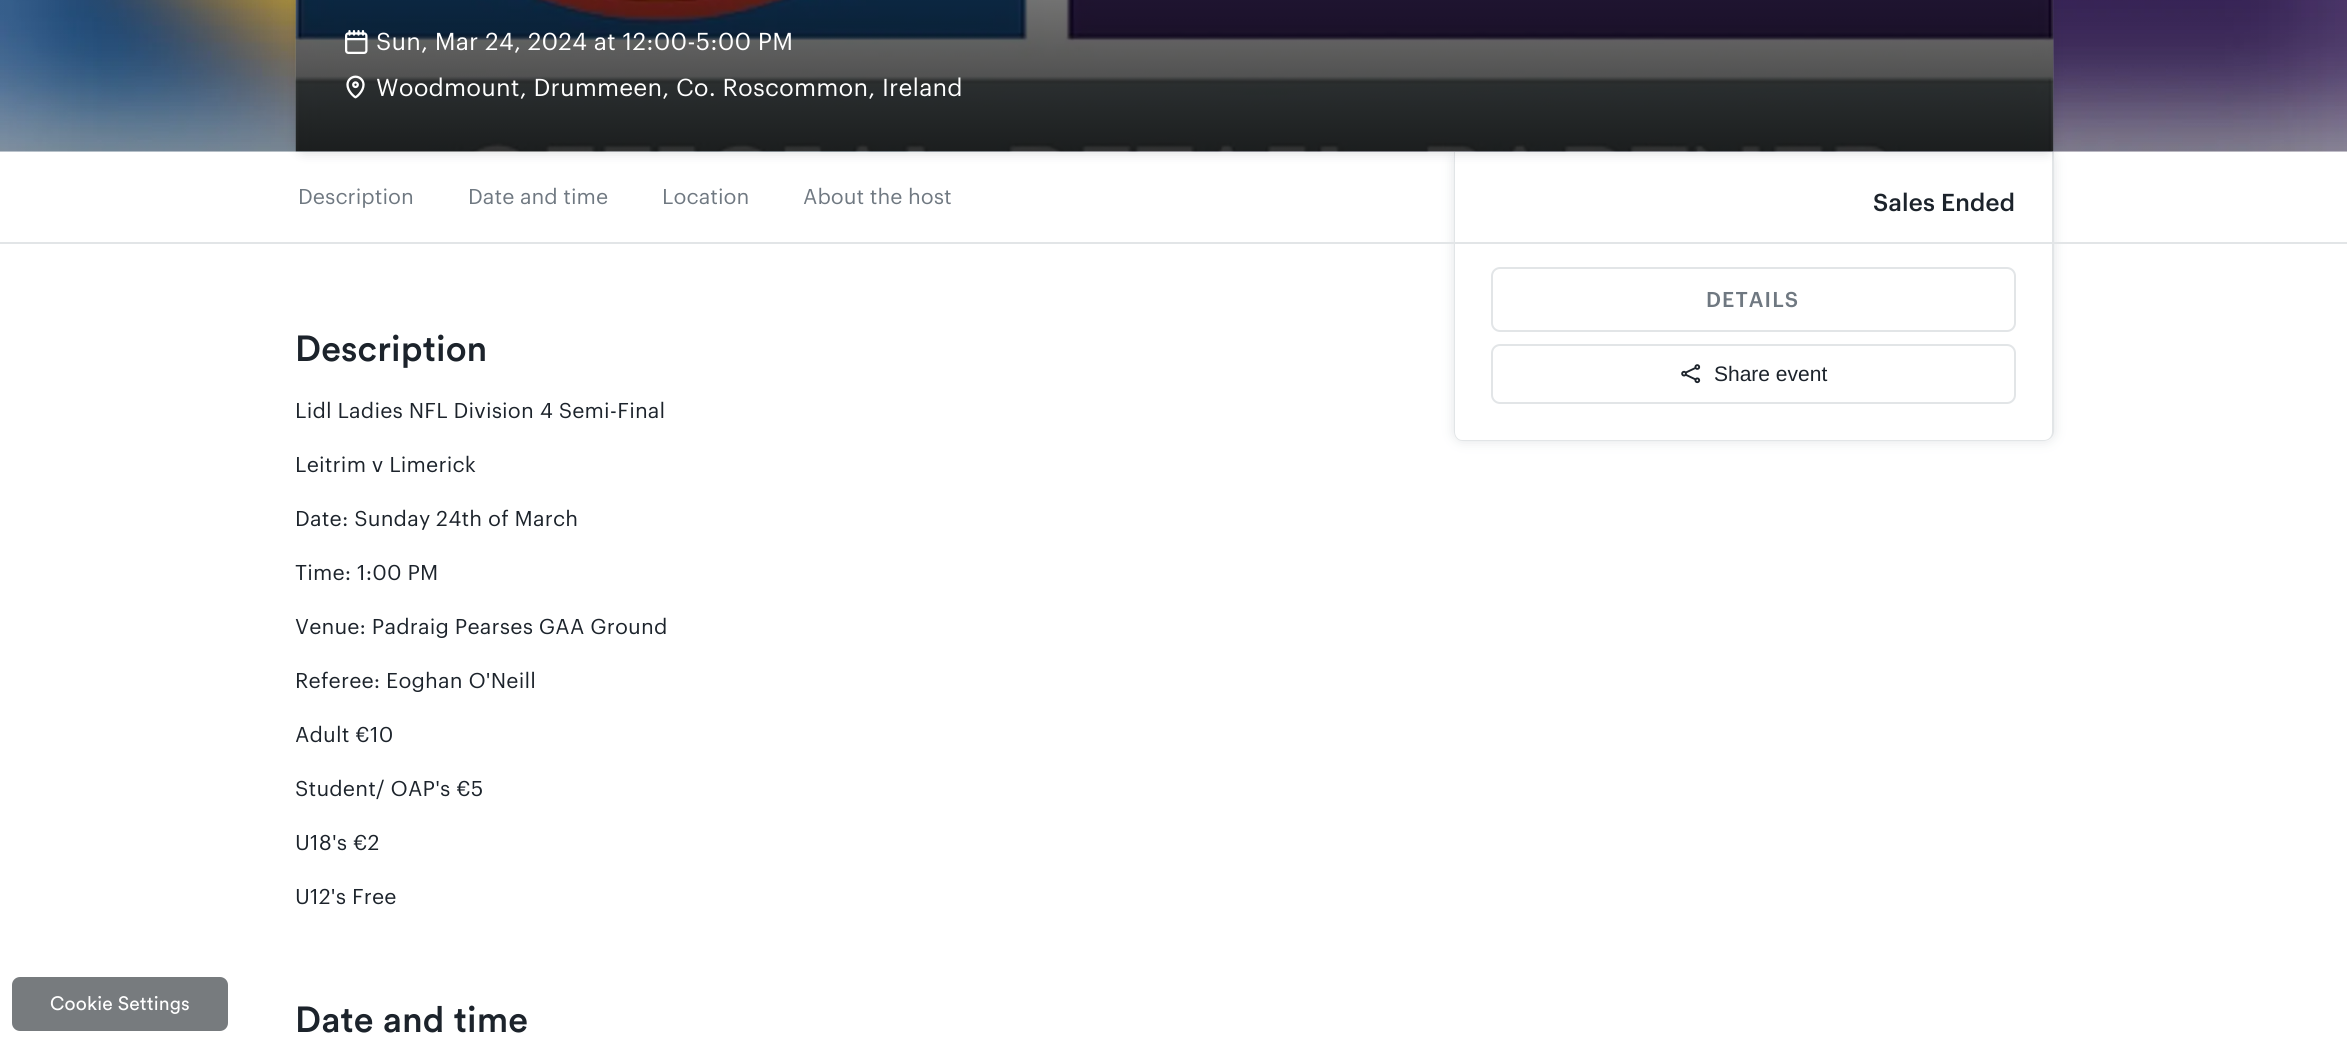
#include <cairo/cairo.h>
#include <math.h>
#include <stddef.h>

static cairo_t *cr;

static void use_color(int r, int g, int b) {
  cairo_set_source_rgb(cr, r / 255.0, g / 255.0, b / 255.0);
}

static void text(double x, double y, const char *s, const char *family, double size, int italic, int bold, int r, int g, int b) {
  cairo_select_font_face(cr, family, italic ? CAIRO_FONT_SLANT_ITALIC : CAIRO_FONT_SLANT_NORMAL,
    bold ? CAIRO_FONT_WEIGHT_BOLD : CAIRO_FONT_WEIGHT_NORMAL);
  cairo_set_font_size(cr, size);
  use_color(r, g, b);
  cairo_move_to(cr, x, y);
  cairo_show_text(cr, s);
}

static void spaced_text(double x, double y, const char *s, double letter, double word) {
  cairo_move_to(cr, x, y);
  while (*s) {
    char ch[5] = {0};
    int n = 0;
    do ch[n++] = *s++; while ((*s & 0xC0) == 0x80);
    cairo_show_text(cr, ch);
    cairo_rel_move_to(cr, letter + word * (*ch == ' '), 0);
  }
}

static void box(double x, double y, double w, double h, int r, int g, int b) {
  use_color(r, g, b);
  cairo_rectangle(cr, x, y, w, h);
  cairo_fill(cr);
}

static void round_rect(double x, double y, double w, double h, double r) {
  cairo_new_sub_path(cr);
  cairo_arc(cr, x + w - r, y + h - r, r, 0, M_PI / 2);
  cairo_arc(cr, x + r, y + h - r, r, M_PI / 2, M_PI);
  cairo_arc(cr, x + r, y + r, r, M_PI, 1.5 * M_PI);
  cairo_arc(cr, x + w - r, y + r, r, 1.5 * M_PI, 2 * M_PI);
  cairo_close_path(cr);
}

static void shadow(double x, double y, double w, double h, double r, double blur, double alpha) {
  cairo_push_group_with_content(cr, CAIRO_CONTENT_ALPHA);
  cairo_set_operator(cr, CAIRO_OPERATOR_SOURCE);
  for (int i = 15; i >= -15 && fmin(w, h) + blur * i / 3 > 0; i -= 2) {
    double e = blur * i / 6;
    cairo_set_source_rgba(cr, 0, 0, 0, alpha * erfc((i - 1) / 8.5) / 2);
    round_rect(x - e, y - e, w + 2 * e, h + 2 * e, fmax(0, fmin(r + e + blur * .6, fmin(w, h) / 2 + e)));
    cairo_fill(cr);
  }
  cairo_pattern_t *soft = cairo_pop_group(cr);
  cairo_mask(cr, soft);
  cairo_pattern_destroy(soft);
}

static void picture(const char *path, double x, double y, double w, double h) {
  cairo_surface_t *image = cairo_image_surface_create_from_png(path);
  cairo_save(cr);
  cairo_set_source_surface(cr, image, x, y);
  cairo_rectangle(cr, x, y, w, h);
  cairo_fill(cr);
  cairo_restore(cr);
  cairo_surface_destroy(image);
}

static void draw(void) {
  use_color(255, 255, 255);
  cairo_paint(cr);
  use_color(119, 123, 126);
  round_rect(12, 977, 216, 54, 8);
  cairo_fill(cr);
  box(0, 242, 2347, 2, 226, 229, 231);
  use_color(226, 229, 231);
  shadow(1454, 152, 600, 289, 9, 6, 1);
  picture("img_01.png", 0, 0, 2347, 152);
  use_color(255, 255, 255);
  cairo_new_path(cr);
  cairo_move_to(cr, 1454, 152);
  cairo_line_to(cr, 2054, 152);
  cairo_line_to(cr, 2054, 432);
  cairo_curve_to(cr, 2054, 437, 2050, 441, 2045, 441);
  cairo_line_to(cr, 1463, 441);
  cairo_curve_to(cr, 1458, 441, 1454, 437, 1454, 432);
  cairo_close_path(cr);
  cairo_fill(cr);
  use_color(226, 229, 231);
  cairo_set_fill_rule(cr, CAIRO_FILL_RULE_EVEN_ODD);
  cairo_new_path(cr);
  cairo_move_to(cr, 1454, 152);
  cairo_line_to(cr, 2054, 152);
  cairo_line_to(cr, 2054, 432);
  cairo_curve_to(cr, 2054, 437, 2049, 441, 2044, 441);
  cairo_line_to(cr, 1462, 441);
  cairo_curve_to(cr, 1458, 441, 1454, 437, 1454, 432);
  cairo_close_path(cr);
  cairo_move_to(cr, 1455, 152);
  cairo_line_to(cr, 2052, 152);
  cairo_line_to(cr, 2052, 432);
  cairo_curve_to(cr, 2052, 436, 2049, 440, 2044, 440);
  cairo_line_to(cr, 1462, 440);
  cairo_curve_to(cr, 1458, 440, 1455, 436, 1455, 432);
  cairo_close_path(cr);
  cairo_fill(cr);
  use_color(28, 35, 43);
  shadow(296, -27, 1758, 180, 9, 6, 0.15);
  picture("img_02.png", 295, 0, 1759, 152);
  picture("img_03.png", 345, 30, 23, 24);
  picture("img_04.png", 346, 75, 19, 24);
  box(1455, 242, 597, 2, 226, 229, 231);
  round_rect(1492, 268, 523, 63, 8);
  cairo_stroke(cr);
  round_rect(1492, 345, 523, 58, 8);
  cairo_stroke(cr);
  picture("img_05.png", 1681, 364, 20, 20);
  cairo_select_font_face(cr, "Circular", CAIRO_FONT_SLANT_NORMAL, CAIRO_FONT_WEIGHT_NORMAL);
  cairo_set_font_size(cr, 19.25);
  use_color(255, 255, 255);
  spaced_text(50, 1010, "Cookie Settings", 0.15, 0);
  cairo_select_font_face(cr, "Graphik", CAIRO_FONT_SLANT_NORMAL, CAIRO_FONT_WEIGHT_NORMAL);
  cairo_set_font_size(cr, 24);
  spaced_text(376, 50, "Sun, Mar 24, 2024 at 12:00-5:00 PM", 0.15, 0);
  spaced_text(376, 96, "Woodmount, Drummeen, Co. Roscommon, Ireland", 0.15, 0);
  text(298, 204, "Description", "Graphik", 21, 0, 0, 111, 120, 129);
  text(468, 204, "Date and time", "Graphik", 21, 0, 0, 111, 120, 129);
  text(662, 204, "Location", "Graphik", 21, 0, 0, 111, 120, 129);
  text(803, 204, "About the host", "Graphik", 21, 0, 0, 111, 120, 129);
  cairo_select_font_face(cr, "Graphik Medium", CAIRO_FONT_SLANT_NORMAL, CAIRO_FONT_WEIGHT_NORMAL);
  cairo_set_font_size(cr, 24);
  use_color(28, 35, 43);
  spaced_text(1873, 211, "Sales Ended", 0.15, 0);
  cairo_set_font_size(cr, 21);
  use_color(111, 120, 129);
  spaced_text(1706, 307, "DETAILS", 1, 0);
  text(1714, 381, "Share event", "Liberation Sans", 21, 0, 0, 28, 35, 43);
  cairo_select_font_face(cr, "Circular Medium", CAIRO_FONT_SLANT_NORMAL, CAIRO_FONT_WEIGHT_NORMAL);
  cairo_set_font_size(cr, 36);
  spaced_text(295, 361, "Description", 0.15, 0);
  cairo_select_font_face(cr, "Graphik", CAIRO_FONT_SLANT_NORMAL, CAIRO_FONT_WEIGHT_NORMAL);
  cairo_set_font_size(cr, 21);
  spaced_text(295, 418, "Lidl Ladies NFL Division 4 Semi-Final", 0.15, 0);
  spaced_text(295, 472, "Leitrim v Limerick", 0.15, 0);
  spaced_text(295, 526, "Date: Sunday 24th of March", 0.15, 0);
  spaced_text(295, 580, "Time: 1:00 PM", 0.15, 0);
  spaced_text(295, 634, "Venue: Padraig Pearses GAA Ground", 0.15, 0);
  spaced_text(295, 688, "Referee: Eoghan O'Neill", 0.15, 0);
  spaced_text(295, 742, "Adult €10", 0.15, 0);
  spaced_text(295, 796, "Student/ OAP's €5", 0.15, 0);
  spaced_text(295, 850, "U18's €2", 0.15, 0);
  spaced_text(295, 904, "U12's Free", 0.15, 0);
  cairo_select_font_face(cr, "Circular Medium", CAIRO_FONT_SLANT_NORMAL, CAIRO_FONT_WEIGHT_NORMAL);
  cairo_set_font_size(cr, 36);
  spaced_text(295, 1032, "Date and time", 0.15, 0);
}

int main(void) {
  cairo_surface_t *surface = cairo_image_surface_create(CAIRO_FORMAT_RGB24, 2347, 1042);
  cr = cairo_create(surface);
  cairo_font_options_t *options = cairo_font_options_create();
  cairo_font_options_set_hint_metrics(options, CAIRO_HINT_METRICS_OFF);
  cairo_font_options_set_hint_style(options, CAIRO_HINT_STYLE_NONE);
  cairo_set_font_options(cr, options);
  cairo_set_miter_limit(cr, 4);
  draw();
  cairo_surface_write_to_png(surface, "out.png");
  cairo_font_options_destroy(options);
  cairo_destroy(cr);
  cairo_surface_destroy(surface);
  return 0;
}
